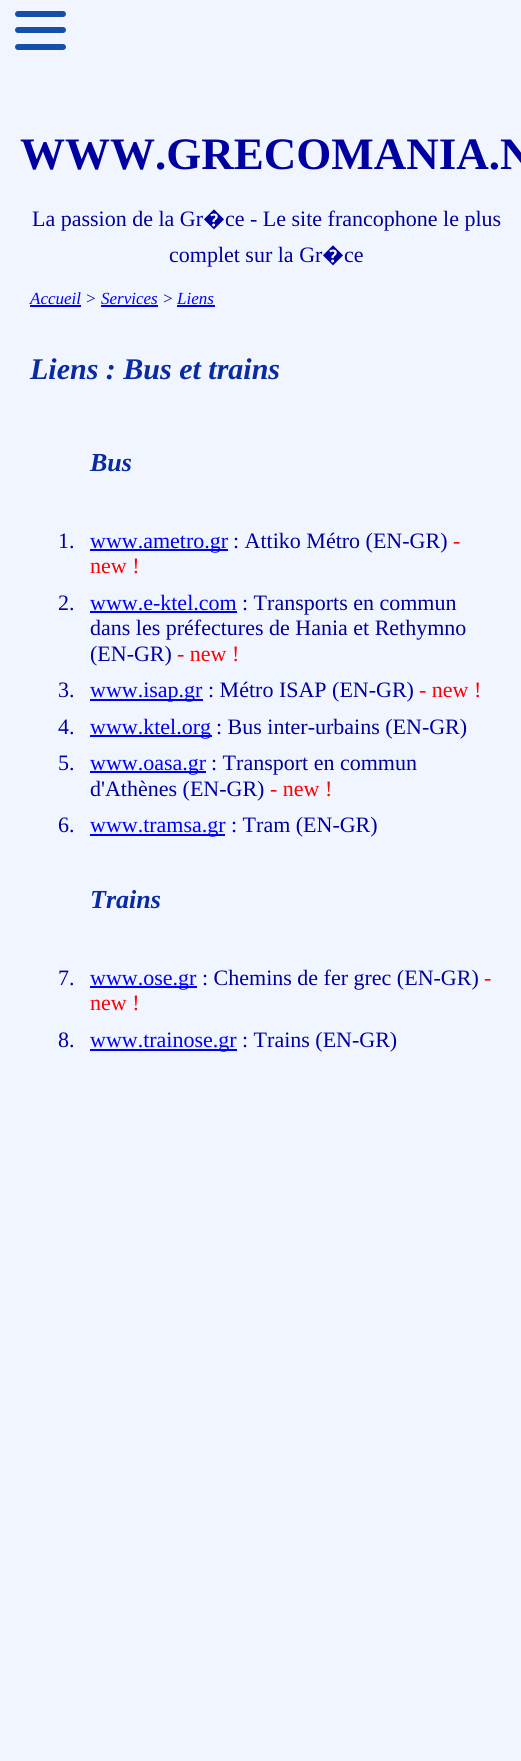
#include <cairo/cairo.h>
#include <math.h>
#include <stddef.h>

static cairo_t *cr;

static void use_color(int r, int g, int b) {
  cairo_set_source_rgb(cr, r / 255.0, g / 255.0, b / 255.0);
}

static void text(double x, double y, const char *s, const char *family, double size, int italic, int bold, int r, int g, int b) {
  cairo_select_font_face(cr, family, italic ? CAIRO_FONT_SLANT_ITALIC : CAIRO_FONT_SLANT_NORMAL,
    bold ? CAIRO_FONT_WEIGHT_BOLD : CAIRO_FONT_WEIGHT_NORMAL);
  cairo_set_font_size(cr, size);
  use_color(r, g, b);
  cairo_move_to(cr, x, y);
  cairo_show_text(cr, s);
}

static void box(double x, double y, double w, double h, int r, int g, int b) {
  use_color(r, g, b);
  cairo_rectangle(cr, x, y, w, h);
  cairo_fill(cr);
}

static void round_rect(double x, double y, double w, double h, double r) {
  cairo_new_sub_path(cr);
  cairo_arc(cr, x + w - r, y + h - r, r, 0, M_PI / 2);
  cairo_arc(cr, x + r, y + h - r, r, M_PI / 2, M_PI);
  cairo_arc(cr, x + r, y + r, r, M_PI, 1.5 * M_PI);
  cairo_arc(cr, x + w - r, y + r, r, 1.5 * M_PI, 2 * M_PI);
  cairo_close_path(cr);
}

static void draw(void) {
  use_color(240, 245, 255);
  cairo_paint(cr);
  use_color(20, 80, 170);
  round_rect(15, 27, 51, 6, 3);
  cairo_fill(cr);
  round_rect(15, 11, 51, 6, 3);
  cairo_fill(cr);
  round_rect(15, 44, 51, 6, 3);
  cairo_fill(cr);
  box(30, 305, 51, 2, 0, 0, 255);
  box(101, 305, 57, 2, 0, 0, 255);
  box(177, 305, 38, 2, 0, 0, 255);
  box(90, 549, 138, 2, 0, 0, 255);
  box(90, 611, 147, 2, 0, 0, 255);
  box(90, 699, 113, 2, 0, 0, 255);
  box(90, 735, 122, 2, 0, 0, 255);
  box(90, 771, 116, 2, 0, 0, 255);
  box(90, 834, 135, 2, 0, 0, 255);
  box(90, 986, 107, 2, 0, 0, 255);
  box(90, 1049, 147, 2, 0, 0, 255);
  text(20, 169, "WWW.GRECOMANIA.N", "Liberation Serif", 45, 0, 1, 0, 0, 160);
  text(32, 226, "La passion de la Gr", "Liberation Serif", 22, 0, 0, 0, 0, 160);
  text(203, 226, "�", "Noto Sans", 22, 0, 0, 0, 0, 160);
  text(225, 226, "ce - Le site francophone le plus", "Liberation Serif", 22, 0, 0, 0, 0, 160);
  text(169, 262, "complet sur la Gr", "Liberation Serif", 22, 0, 0, 0, 0, 160);
  text(322, 262, "�", "Noto Sans", 22, 0, 0, 0, 0, 160);
  text(344, 262, "ce", "Liberation Serif", 22, 0, 0, 0, 0, 160);
  text(30, 304, "Accueil", "Liberation Serif", 17, 1, 0, 0, 0, 255);
  text(85, 304, ">", "Liberation Serif", 17, 1, 0, 0, 0, 160);
  text(101, 304, "Services", "Liberation Serif", 17, 1, 0, 0, 0, 255);
  text(162, 304, ">", "Liberation Serif", 17, 1, 0, 0, 0, 160);
  text(177, 304, "Liens", "Liberation Serif", 17, 1, 0, 0, 0, 255);
  text(30, 379, "Liens : Bus et trains", "Liberation Serif", 30, 1, 1, 8, 43, 165);
  text(90, 471, "Bus", "Liberation Serif", 26, 1, 1, 8, 43, 165);
  text(58, 548, "1.", "Liberation Serif", 22, 0, 0, 0, 0, 160);
  text(90, 548, "www.ametro.gr", "Liberation Serif", 22, 0, 0, 0, 0, 255);
  text(233, 548, ": Attiko Métro (EN-GR)", "Liberation Serif", 22, 0, 0, 0, 0, 160);
  text(453, 548, "-", "Liberation Serif", 22, 0, 0, 255, 0, 0);
  text(90, 573, "new !", "Liberation Serif", 22, 0, 0, 255, 0, 0);
  text(58, 610, "2.", "Liberation Serif", 22, 0, 0, 0, 0, 160);
  text(90, 610, "www.e-ktel.com", "Liberation Serif", 22, 0, 0, 0, 0, 255);
  text(242, 610, ": Transports en commun", "Liberation Serif", 22, 0, 0, 0, 0, 160);
  text(90, 635, "dans les préfectures de Hania et Rethymno", "Liberation Serif", 22, 0, 0, 0, 0, 160);
  text(90, 661, "(EN-GR)", "Liberation Serif", 22, 0, 0, 0, 0, 160);
  text(177, 661, "- new !", "Liberation Serif", 22, 0, 0, 255, 0, 0);
  text(58, 697, "3.", "Liberation Serif", 22, 0, 0, 0, 0, 160);
  text(90, 697, "www.isap.gr", "Liberation Serif", 22, 0, 0, 0, 0, 255);
  text(208, 697, ": Métro ISAP (EN-GR)", "Liberation Serif", 22, 0, 0, 0, 0, 160);
  text(419, 697, "- new !", "Liberation Serif", 22, 0, 0, 255, 0, 0);
  text(58, 734, "4.", "Liberation Serif", 22, 0, 0, 0, 0, 160);
  text(90, 734, "www.ktel.org", "Liberation Serif", 22, 0, 0, 0, 0, 255);
  text(216, 734, ": Bus inter-urbains (EN-GR)", "Liberation Serif", 22, 0, 0, 0, 0, 160);
  text(58, 770, "5.", "Liberation Serif", 22, 0, 0, 0, 0, 160);
  text(90, 770, "www.oasa.gr", "Liberation Serif", 22, 0, 0, 0, 0, 255);
  text(211, 770, ": Transport en commun", "Liberation Serif", 22, 0, 0, 0, 0, 160);
  text(90, 796, "d'Athènes (EN-GR)", "Liberation Serif", 22, 0, 0, 0, 0, 160);
  text(270, 796, "- new !", "Liberation Serif", 22, 0, 0, 255, 0, 0);
  text(58, 832, "6.", "Liberation Serif", 22, 0, 0, 0, 0, 160);
  text(90, 832, "www.tramsa.gr", "Liberation Serif", 22, 0, 0, 0, 0, 255);
  text(231, 832, ": Tram (EN-GR)", "Liberation Serif", 22, 0, 0, 0, 0, 160);
  text(90, 908, "Trains", "Liberation Serif", 26, 1, 1, 8, 43, 165);
  text(58, 985, "7.", "Liberation Serif", 22, 0, 0, 0, 0, 160);
  text(90, 985, "www.ose.gr", "Liberation Serif", 22, 0, 0, 0, 0, 255);
  text(202, 985, ": Chemins de fer grec (EN-GR)", "Liberation Serif", 22, 0, 0, 0, 0, 160);
  text(484, 985, "-", "Liberation Serif", 22, 0, 0, 255, 0, 0);
  text(90, 1010, "new !", "Liberation Serif", 22, 0, 0, 255, 0, 0);
  text(58, 1047, "8.", "Liberation Serif", 22, 0, 0, 0, 0, 160);
  text(90, 1047, "www.trainose.gr", "Liberation Serif", 22, 0, 0, 0, 0, 255);
  text(242, 1047, ": Trains (EN-GR)", "Liberation Serif", 22, 0, 0, 0, 0, 160);
}

int main(void) {
  cairo_surface_t *surface = cairo_image_surface_create(CAIRO_FORMAT_RGB24, 521, 1761);
  cr = cairo_create(surface);
  cairo_font_options_t *options = cairo_font_options_create();
  cairo_font_options_set_hint_metrics(options, CAIRO_HINT_METRICS_OFF);
  cairo_font_options_set_hint_style(options, CAIRO_HINT_STYLE_NONE);
  cairo_set_font_options(cr, options);
  cairo_set_miter_limit(cr, 4);
  draw();
  cairo_surface_write_to_png(surface, "out.png");
  cairo_font_options_destroy(options);
  cairo_destroy(cr);
  cairo_surface_destroy(surface);
  return 0;
}
